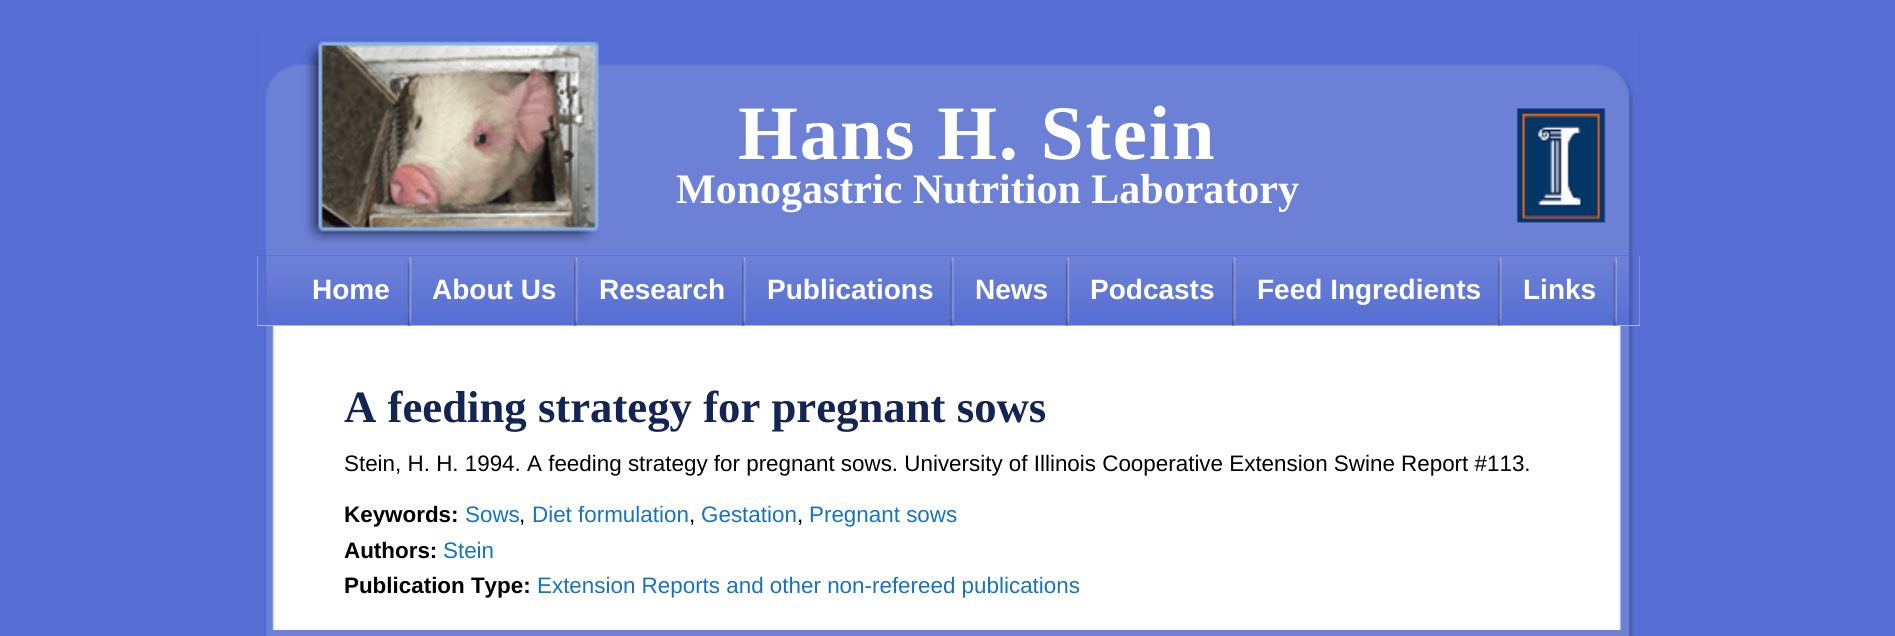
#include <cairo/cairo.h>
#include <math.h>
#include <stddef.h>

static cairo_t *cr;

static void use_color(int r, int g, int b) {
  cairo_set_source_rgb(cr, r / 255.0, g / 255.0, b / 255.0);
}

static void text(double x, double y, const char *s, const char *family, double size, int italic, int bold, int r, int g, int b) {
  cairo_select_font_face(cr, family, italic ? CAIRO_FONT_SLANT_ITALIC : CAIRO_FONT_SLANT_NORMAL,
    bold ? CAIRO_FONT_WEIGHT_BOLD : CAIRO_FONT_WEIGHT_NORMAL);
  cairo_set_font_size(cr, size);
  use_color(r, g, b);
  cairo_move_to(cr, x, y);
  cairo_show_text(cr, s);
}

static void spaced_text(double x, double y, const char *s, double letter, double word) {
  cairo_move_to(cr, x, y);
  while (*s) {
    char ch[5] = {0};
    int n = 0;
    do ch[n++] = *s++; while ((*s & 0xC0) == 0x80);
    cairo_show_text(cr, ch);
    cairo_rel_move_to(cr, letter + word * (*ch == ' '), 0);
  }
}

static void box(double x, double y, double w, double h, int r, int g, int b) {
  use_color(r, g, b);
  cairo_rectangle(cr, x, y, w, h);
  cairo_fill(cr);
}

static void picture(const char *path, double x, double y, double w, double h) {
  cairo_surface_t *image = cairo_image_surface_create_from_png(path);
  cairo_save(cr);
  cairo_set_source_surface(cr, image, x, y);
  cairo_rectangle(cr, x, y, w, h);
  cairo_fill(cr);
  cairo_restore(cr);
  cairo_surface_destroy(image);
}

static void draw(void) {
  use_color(87, 111, 212);
  cairo_paint(cr);
  picture("img_01.png", 257, 326, 1383, 310);
  box(257, 26, 1383, 230, 87, 101, 212);
  picture("img_02.png", 257, 26, 1383, 230);
  box(257, 256, 1383, 70, 255, 255, 255);
  picture("img_03.png", 257, 256, 1383, 70);
  picture("img_04.png", 407, 257, 5, 69);
  picture("img_05.png", 574, 257, 4, 69);
  picture("img_06.png", 742, 257, 4, 69);
  picture("img_07.png", 950, 257, 4, 69);
  picture("img_08.png", 1065, 257, 5, 69);
  picture("img_09.png", 1232, 257, 4, 69);
  picture("img_06.png", 1498, 257, 4, 69);
  picture("img_10.png", 1613, 257, 4, 69);
  picture("img_11.png", 257, 630, 1383, 6);
  cairo_select_font_face(cr, "Liberation Serif", CAIRO_FONT_SLANT_NORMAL, CAIRO_FONT_WEIGHT_BOLD);
  cairo_set_font_size(cr, 77);
  spaced_text(738, 159, "Hans H. Stein", 1.75, 0);
  text(676, 203, "Monogastric Nutrition Laboratory", "Liberation Serif", 42, 0, 1, 255, 255, 255);
  text(312, 299, "Home", "Liberation Sans", 28, 0, 1, 255, 255, 255);
  text(432, 299, "About Us", "Liberation Sans", 28, 0, 1, 255, 255, 255);
  text(599, 299, "Research", "Liberation Sans", 28, 0, 1, 255, 255, 255);
  text(767, 299, "Publications", "Liberation Sans", 28, 0, 1, 255, 255, 255);
  text(975, 299, "News", "Liberation Sans", 28, 0, 1, 255, 255, 255);
  text(1090, 299, "Podcasts", "Liberation Sans", 28, 0, 1, 255, 255, 255);
  text(1257, 299, "Feed Ingredients", "Liberation Sans", 28, 0, 1, 255, 255, 255);
  text(1523, 299, "Links", "Liberation Sans", 28, 0, 1, 255, 255, 255);
  text(344, 422, "A feeding strategy for pregnant sows", "Liberation Serif", 44.75, 0, 1, 20, 37, 83);
  text(344, 471, "Stein, H. H. 1994. A feeding strategy for pregnant sows. University of Illinois Cooperative Extension Swine Report #113.", "Liberation Sans", 22.4, 0, 0, 0, 0, 0);
  text(344, 522, "Keywords:", "Liberation Sans", 22.4, 0, 1, 0, 0, 0);
  text(465, 522, "Sows", "Liberation Sans", 22.4, 0, 0, 23, 115, 188);
  text(519, 522, ",", "Liberation Sans", 22.4, 0, 0, 0, 0, 0);
  text(532, 522, "Diet formulation", "Liberation Sans", 22.4, 0, 0, 23, 115, 188);
  text(689, 522, ",", "Liberation Sans", 22.4, 0, 0, 0, 0, 0);
  text(701, 522, "Gestation", "Liberation Sans", 22.4, 0, 0, 23, 115, 188);
  text(797, 522, ",", "Liberation Sans", 22.4, 0, 0, 0, 0, 0);
  text(809, 522, "Pregnant sows", "Liberation Sans", 22.4, 0, 0, 23, 115, 188);
  text(344, 558, "Authors:", "Liberation Sans", 22.4, 0, 1, 0, 0, 0);
  text(443, 558, "Stein", "Liberation Sans", 22.4, 0, 0, 23, 115, 188);
  text(344, 593, "Publication Type:", "Liberation Sans", 22.4, 0, 1, 0, 0, 0);
  text(537, 593, "Extension Reports and other non-refereed publications", "Liberation Sans", 22.4, 0, 0, 23, 115, 188);
}

int main(void) {
  cairo_surface_t *surface = cairo_image_surface_create(CAIRO_FORMAT_RGB24, 1895, 636);
  cr = cairo_create(surface);
  cairo_font_options_t *options = cairo_font_options_create();
  cairo_font_options_set_hint_metrics(options, CAIRO_HINT_METRICS_OFF);
  cairo_font_options_set_hint_style(options, CAIRO_HINT_STYLE_NONE);
  cairo_set_font_options(cr, options);
  cairo_set_miter_limit(cr, 4);
  draw();
  cairo_surface_write_to_png(surface, "out.png");
  cairo_font_options_destroy(options);
  cairo_destroy(cr);
  cairo_surface_destroy(surface);
  return 0;
}
